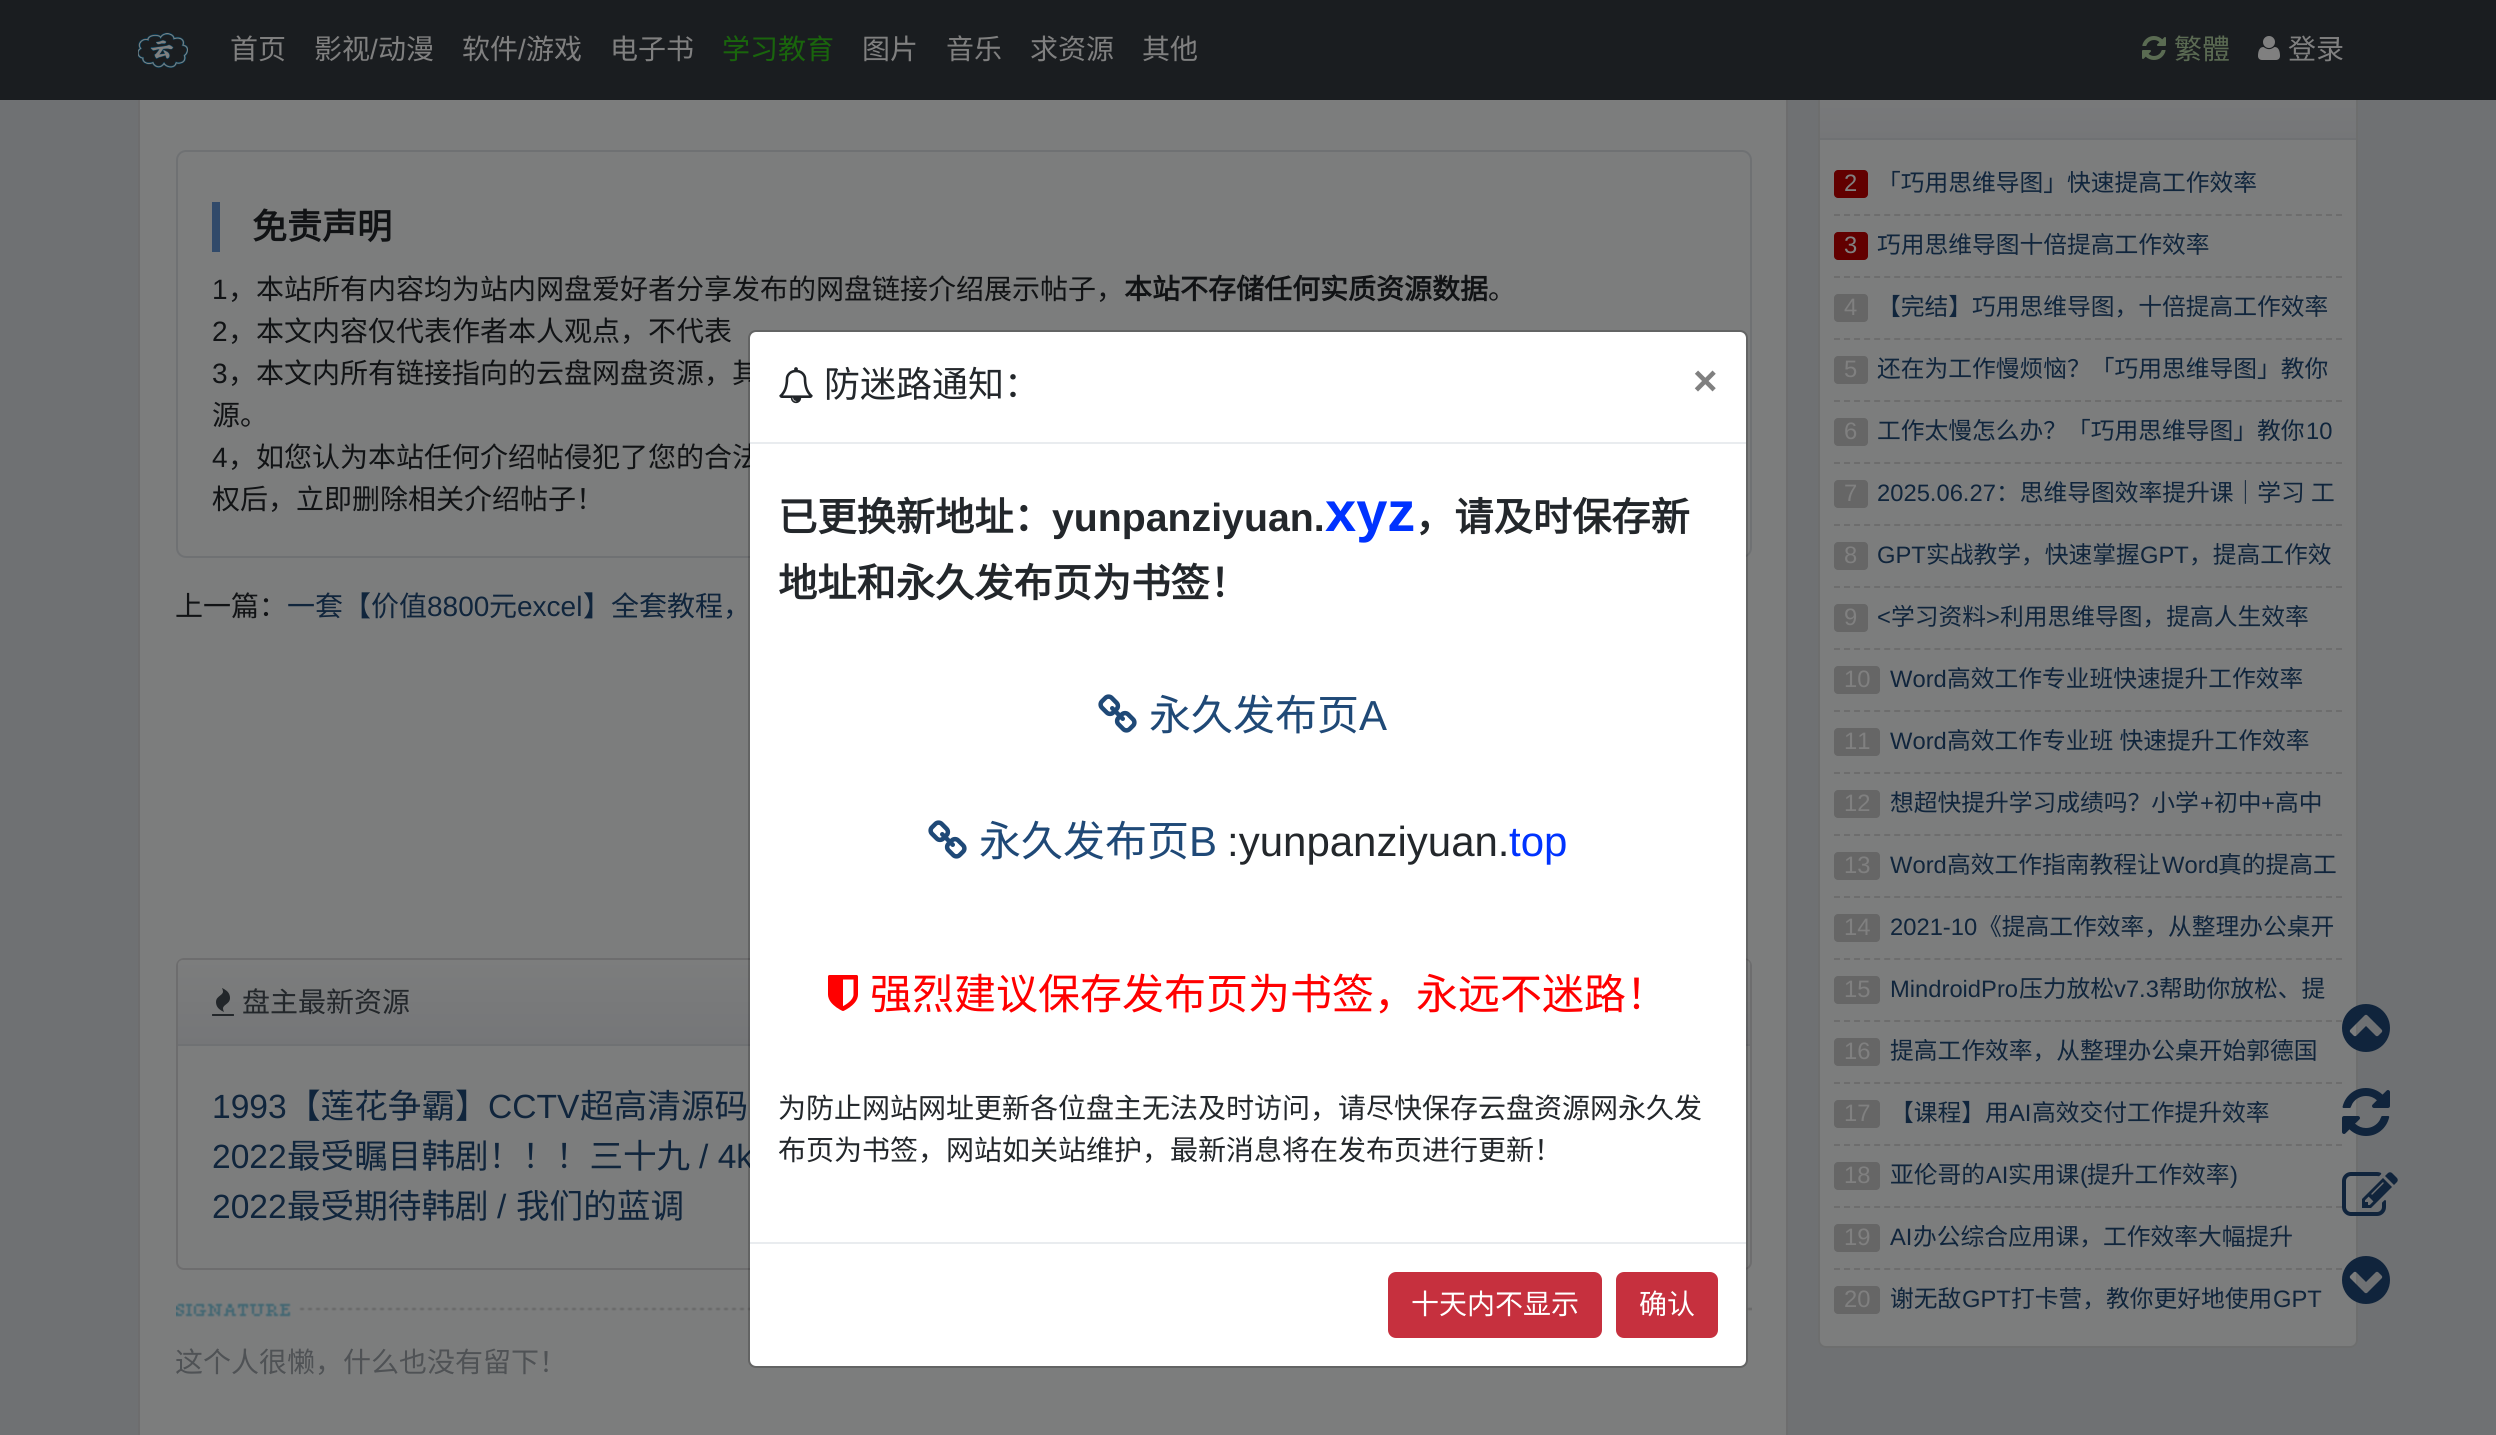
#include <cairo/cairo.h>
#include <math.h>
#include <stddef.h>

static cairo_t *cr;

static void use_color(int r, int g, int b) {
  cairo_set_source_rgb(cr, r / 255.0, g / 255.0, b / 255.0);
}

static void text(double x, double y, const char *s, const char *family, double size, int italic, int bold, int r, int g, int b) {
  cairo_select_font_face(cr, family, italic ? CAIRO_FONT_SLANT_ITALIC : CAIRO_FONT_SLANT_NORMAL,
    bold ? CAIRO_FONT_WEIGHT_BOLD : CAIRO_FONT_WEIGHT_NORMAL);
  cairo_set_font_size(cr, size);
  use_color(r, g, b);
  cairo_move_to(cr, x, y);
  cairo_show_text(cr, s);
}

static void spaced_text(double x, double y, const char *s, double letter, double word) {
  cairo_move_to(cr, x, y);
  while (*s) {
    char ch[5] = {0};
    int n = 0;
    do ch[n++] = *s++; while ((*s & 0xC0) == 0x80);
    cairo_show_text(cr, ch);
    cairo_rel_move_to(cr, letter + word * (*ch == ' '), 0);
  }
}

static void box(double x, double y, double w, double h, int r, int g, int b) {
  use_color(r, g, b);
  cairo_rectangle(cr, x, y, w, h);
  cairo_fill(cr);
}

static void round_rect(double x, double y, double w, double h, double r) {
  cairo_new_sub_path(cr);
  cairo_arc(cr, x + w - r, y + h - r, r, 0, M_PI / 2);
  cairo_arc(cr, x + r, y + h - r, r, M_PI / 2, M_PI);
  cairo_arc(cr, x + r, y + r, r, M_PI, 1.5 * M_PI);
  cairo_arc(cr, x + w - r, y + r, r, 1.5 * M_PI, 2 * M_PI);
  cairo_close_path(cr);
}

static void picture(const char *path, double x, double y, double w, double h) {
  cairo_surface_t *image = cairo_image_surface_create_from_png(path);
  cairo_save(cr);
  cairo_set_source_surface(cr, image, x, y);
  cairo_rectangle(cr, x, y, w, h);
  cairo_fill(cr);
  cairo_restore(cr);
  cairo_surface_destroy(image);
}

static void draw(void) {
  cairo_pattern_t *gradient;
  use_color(111, 113, 115);
  cairo_paint(cr);
  box(138, 100, 1650, 1335, 124, 125, 125);
  cairo_rectangle(cr, 139, -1, 1648, 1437);
  use_color(109, 109, 110);
  cairo_stroke(cr);
  use_color(124, 125, 125);
  round_rect(1818, 52, 540, 1296, 8);
  cairo_fill(cr);
  round_rect(1819, 53, 538, 1294, 7);
  cairo_set_source_rgba(cr, 0, 0, 0, 0.12);
  cairo_stroke(cr);
  box(0, 0, 2496, 100, 26, 29, 32);
  picture("img_01.png", 138, 32, 50, 36);
  picture("img_02.png", 2142, 36, 24, 24);
  picture("img_03.png", 2258, 36, 22, 24);
  round_rect(177, 151, 1574, 406, 9);
  use_color(111, 113, 115);
  cairo_stroke(cr);
  box(212, 202, 8, 50, 49, 74, 106);
  round_rect(177, 959, 1574, 310, 7);
  use_color(109, 109, 110);
  cairo_stroke(cr);
  gradient = cairo_pattern_create_linear(964, 1044, 964, 960);
  cairo_pattern_add_color_stop_rgba(gradient, 0, 0.459, 0.463, 0.471, 1);
  cairo_pattern_add_color_stop_rgba(gradient, 1, 0.486, 0.49, 0.49, 1);
  cairo_set_source(cr, gradient);
  cairo_pattern_destroy(gradient);
  cairo_new_path(cr);
  cairo_move_to(cr, 183, 960);
  cairo_line_to(cr, 1745, 960);
  cairo_curve_to(cr, 1748, 960, 1750, 962, 1750, 965);
  cairo_line_to(cr, 1750, 1044);
  cairo_line_to(cr, 178, 1044);
  cairo_line_to(cr, 178, 965);
  cairo_curve_to(cr, 178, 962, 180, 960, 183, 960);
  cairo_close_path(cr);
  cairo_fill(cr);
  box(178, 1044, 1572, 2, 111, 113, 115);
  picture("img_04.png", 212, 988, 22, 28);
  picture("img_05.png", 176, 1303, 1576, 14);
  gradient = cairo_pattern_create_linear(2088, 138, 2088, 54);
  cairo_pattern_add_color_stop_rgba(gradient, 0, 0.459, 0.463, 0.471, 1);
  cairo_pattern_add_color_stop_rgba(gradient, 1, 0.486, 0.49, 0.49, 1);
  cairo_set_source(cr, gradient);
  cairo_pattern_destroy(gradient);
  cairo_rectangle(cr, 1820, 100, 536, 38);
  cairo_fill(cr);
  box(1820, 138, 536, 2, 111, 113, 115);
  cairo_new_path(cr);
  cairo_move_to(cr, 1834, 215);
  cairo_line_to(cr, 2342, 215);
  use_color(109, 109, 109);
  cairo_set_dash(cr, (double[]){6, 4.04}, 2, 0);
  cairo_stroke(cr);
  use_color(98, 0, 0);
  round_rect(1834, 170, 34, 28, 4);
  cairo_fill(cr);
  cairo_new_path(cr);
  cairo_move_to(cr, 1834, 277);
  cairo_line_to(cr, 2342, 277);
  use_color(109, 109, 109);
  cairo_stroke(cr);
  use_color(98, 0, 0);
  round_rect(1834, 232, 34, 28, 4);
  cairo_fill(cr);
  cairo_new_path(cr);
  cairo_move_to(cr, 1834, 339);
  cairo_line_to(cr, 2342, 339);
  use_color(109, 109, 109);
  cairo_stroke(cr);
  use_color(102, 102, 102);
  round_rect(1834, 294, 34, 28, 4);
  cairo_fill(cr);
  cairo_new_path(cr);
  cairo_move_to(cr, 1834, 401);
  cairo_line_to(cr, 2342, 401);
  use_color(109, 109, 109);
  cairo_stroke(cr);
  use_color(102, 102, 102);
  round_rect(1834, 356, 34, 28, 4);
  cairo_fill(cr);
  cairo_new_path(cr);
  cairo_move_to(cr, 1834, 463);
  cairo_line_to(cr, 2342, 463);
  use_color(109, 109, 109);
  cairo_stroke(cr);
  use_color(102, 102, 102);
  round_rect(1834, 418, 34, 28, 4);
  cairo_fill(cr);
  cairo_new_path(cr);
  cairo_move_to(cr, 1834, 525);
  cairo_line_to(cr, 2342, 525);
  use_color(109, 109, 109);
  cairo_stroke(cr);
  use_color(102, 102, 102);
  round_rect(1834, 480, 34, 28, 4);
  cairo_fill(cr);
  cairo_new_path(cr);
  cairo_move_to(cr, 1834, 587);
  cairo_line_to(cr, 2342, 587);
  use_color(109, 109, 109);
  cairo_stroke(cr);
  use_color(102, 102, 102);
  round_rect(1834, 542, 34, 28, 4);
  cairo_fill(cr);
  cairo_new_path(cr);
  cairo_move_to(cr, 1834, 649);
  cairo_line_to(cr, 2342, 649);
  use_color(109, 109, 109);
  cairo_stroke(cr);
  use_color(102, 102, 102);
  round_rect(1834, 604, 34, 28, 4);
  cairo_fill(cr);
  cairo_new_path(cr);
  cairo_move_to(cr, 1834, 711);
  cairo_line_to(cr, 2342, 711);
  use_color(109, 109, 109);
  cairo_stroke(cr);
  use_color(102, 102, 102);
  round_rect(1834, 666, 46, 28, 4);
  cairo_fill(cr);
  cairo_new_path(cr);
  cairo_move_to(cr, 1834, 773);
  cairo_line_to(cr, 2342, 773);
  use_color(109, 109, 109);
  cairo_stroke(cr);
  use_color(102, 102, 102);
  round_rect(1834, 728, 46, 28, 4);
  cairo_fill(cr);
  cairo_new_path(cr);
  cairo_move_to(cr, 1834, 835);
  cairo_line_to(cr, 2342, 835);
  use_color(109, 109, 109);
  cairo_stroke(cr);
  use_color(102, 102, 102);
  round_rect(1834, 790, 46, 28, 4);
  cairo_fill(cr);
  cairo_new_path(cr);
  cairo_move_to(cr, 1834, 897);
  cairo_line_to(cr, 2342, 897);
  use_color(109, 109, 109);
  cairo_stroke(cr);
  use_color(102, 102, 102);
  round_rect(1834, 852, 46, 28, 4);
  cairo_fill(cr);
  cairo_new_path(cr);
  cairo_move_to(cr, 1834, 959);
  cairo_line_to(cr, 2342, 959);
  use_color(109, 109, 109);
  cairo_stroke(cr);
  use_color(102, 102, 102);
  round_rect(1834, 914, 46, 28, 4);
  cairo_fill(cr);
  cairo_new_path(cr);
  cairo_move_to(cr, 1834, 1021);
  cairo_line_to(cr, 2342, 1021);
  use_color(109, 109, 109);
  cairo_stroke(cr);
  use_color(102, 102, 102);
  round_rect(1834, 976, 46, 28, 4);
  cairo_fill(cr);
  cairo_new_path(cr);
  cairo_move_to(cr, 1834, 1083);
  cairo_line_to(cr, 2342, 1083);
  use_color(109, 109, 109);
  cairo_stroke(cr);
  use_color(102, 102, 102);
  round_rect(1834, 1038, 46, 28, 4);
  cairo_fill(cr);
  cairo_new_path(cr);
  cairo_move_to(cr, 1834, 1145);
  cairo_line_to(cr, 2342, 1145);
  use_color(109, 109, 109);
  cairo_stroke(cr);
  use_color(102, 102, 102);
  round_rect(1834, 1100, 46, 28, 4);
  cairo_fill(cr);
  cairo_new_path(cr);
  cairo_move_to(cr, 1834, 1207);
  cairo_line_to(cr, 2342, 1207);
  use_color(109, 109, 109);
  cairo_stroke(cr);
  use_color(102, 102, 102);
  round_rect(1834, 1162, 46, 28, 4);
  cairo_fill(cr);
  cairo_new_path(cr);
  cairo_move_to(cr, 1834, 1269);
  cairo_line_to(cr, 2342, 1269);
  use_color(109, 109, 109);
  cairo_stroke(cr);
  use_color(102, 102, 102);
  round_rect(1834, 1224, 46, 28, 4);
  cairo_fill(cr);
  round_rect(1834, 1286, 46, 28, 4);
  cairo_fill(cr);
  picture("img_09.png", 2342, 1004, 48, 48);
  picture("img_10.png", 2342, 1088, 48, 48);
  picture("img_11.png", 2342, 1172, 56, 44);
  picture("img_12.png", 2342, 1256, 48, 48);
  text(230, 59, "首页", "Noto Sans CJK SC", 28, 0, 0, 128, 128, 128);
  text(314, 59, "影视", "Noto Sans CJK SC", 28, 0, 0, 128, 128, 128);
  text(370, 59, "/", "Liberation Sans", 28, 0, 0, 128, 128, 128);
  text(378, 59, "动漫", "Noto Sans CJK SC", 28, 0, 0, 128, 128, 128);
  text(462, 59, "软件", "Noto Sans CJK SC", 28, 0, 0, 128, 128, 128);
  text(518, 59, "/", "Liberation Sans", 28, 0, 0, 128, 128, 128);
  text(526, 59, "游戏", "Noto Sans CJK SC", 28, 0, 0, 128, 128, 128);
  text(610, 59, "电子书", "Noto Sans CJK SC", 28, 0, 0, 128, 128, 128);
  text(722, 59, "学习教育", "Noto Sans CJK SC", 28, 0, 0, 25, 101, 12);
  text(862, 59, "图片", "Noto Sans CJK SC", 28, 0, 0, 128, 128, 128);
  text(946, 59, "音乐", "Noto Sans CJK SC", 28, 0, 0, 128, 128, 128);
  text(1030, 59, "求资源", "Noto Sans CJK SC", 28, 0, 0, 128, 128, 128);
  text(1142, 59, "其他", "Noto Sans CJK SC", 28, 0, 0, 128, 128, 128);
  text(2174, 59, "繁體", "Noto Sans CJK SC", 28, 0, 0, 91, 107, 83);
  text(2288, 59, "登录", "Noto Sans CJK SC", 28, 0, 0, 128, 128, 128);
  text(252, 239, "免责声明", "Noto Sans CJK SC", 35, 0, 1, 17, 19, 21);
  text(212, 299, "1", "Liberation Sans", 28, 0, 0, 17, 19, 21);
  text(228, 299, "，本站所有内容均为站内网盘爱好者分享发布的网盘链接介绍展示帖子，", "Noto Sans CJK SC", 28, 0, 0, 17, 19, 21);
  text(1124, 299, "本站不存储任何实质资源数据", "Noto Sans CJK SC", 28, 0, 1, 17, 19, 21);
  text(1488, 299, "。", "Noto Sans CJK SC", 28, 0, 0, 17, 19, 21);
  text(212, 341, "2", "Liberation Sans", 28, 0, 0, 17, 19, 21);
  text(228, 341, "，本文内容仅代表作者本人观点，不代表", "Noto Sans CJK SC", 28, 0, 0, 17, 19, 21);
  text(212, 383, "3", "Liberation Sans", 28, 0, 0, 17, 19, 21);
  text(228, 383, "，本文内所有链接指向的云盘网盘资源，其", "Noto Sans CJK SC", 28, 0, 0, 17, 19, 21);
  text(212, 425, "源。", "Noto Sans CJK SC", 28, 0, 0, 17, 19, 21);
  text(212, 467, "4", "Liberation Sans", 28, 0, 0, 17, 19, 21);
  text(228, 467, "，如您认为本站任何介绍帖侵犯了您的合法", "Noto Sans CJK SC", 28, 0, 0, 17, 19, 21);
  text(212, 509, "权后，立即删除相关介绍帖子！", "Noto Sans CJK SC", 28, 0, 0, 17, 19, 21);
  text(175, 616, "上一篇：", "Noto Sans CJK SC", 28, 0, 0, 17, 19, 21);
  text(287, 616, "一套【价值", "Noto Sans CJK SC", 28, 0, 0, 16, 37, 60);
  text(427, 616, "8800", "Liberation Sans", 28, 0, 0, 16, 37, 60);
  text(489, 616, "元", "Noto Sans CJK SC", 28, 0, 0, 16, 37, 60);
  text(517, 616, "excel", "Liberation Sans", 28, 0, 0, 16, 37, 60);
  text(583, 616, "】全套教程，", "Noto Sans CJK SC", 28, 0, 0, 16, 37, 60);
  text(242, 1012, "盘主最新资源", "Noto Sans CJK SC", 28, 0, 0, 35, 39, 43);
  text(212, 1118, "1993", "Liberation Sans", 33.6, 0, 0, 16, 37, 60);
  text(287, 1118, "【莲花争霸】", "Noto Sans CJK SC", 33.6, 0, 0, 16, 37, 60);
  text(488, 1118, "CCTV", "Liberation Sans", 33.6, 0, 0, 16, 37, 60);
  text(580, 1118, "超高清源码", "Noto Sans CJK SC", 33.6, 0, 0, 16, 37, 60);
  text(212, 1168, "2022", "Liberation Sans", 33.6, 0, 0, 16, 37, 60);
  text(287, 1168, "最受瞩目韩剧！！！三十九", "Noto Sans CJK SC", 33.6, 0, 0, 16, 37, 60);
  text(699, 1168, "/ 4k", "Liberation Sans", 33.6, 0, 0, 16, 37, 60);
  text(212, 1218, "2022", "Liberation Sans", 33.6, 0, 0, 16, 37, 60);
  text(287, 1218, "最受期待韩剧", "Noto Sans CJK SC", 33.6, 0, 0, 16, 37, 60);
  text(497, 1218, "/", "Liberation Sans", 33.6, 0, 0, 16, 37, 60);
  text(516, 1218, "我们的蓝调", "Noto Sans CJK SC", 33.6, 0, 0, 16, 37, 60);
  text(175, 1372, "这个人很懒，什么也没有留下！", "Noto Sans CJK SC", 28, 0, 0, 79, 82, 85);
  text(1844, 191, "2", "Liberation Sans", 23.75, 0, 0, 128, 128, 128);
  text(1877, 191, "「巧用思维导图」快速提高工作效率", "Noto Sans CJK SC", 23.75, 0, 0, 16, 37, 60);
  text(1844, 253, "3", "Liberation Sans", 23.75, 0, 0, 128, 128, 128);
  text(1877, 253, "巧用思维导图十倍提高工作效率", "Noto Sans CJK SC", 23.75, 0, 0, 16, 37, 60);
  text(1844, 315, "4", "Liberation Sans", 23.75, 0, 0, 128, 128, 128);
  text(1877, 315, "【完结】巧用思维导图，十倍提高工作效率", "Noto Sans CJK SC", 23.75, 0, 0, 16, 37, 60);
  text(1844, 377, "5", "Liberation Sans", 23.75, 0, 0, 128, 128, 128);
  text(1877, 377, "还在为工作慢烦恼？「巧用思维导图」教你", "Noto Sans CJK SC", 23.75, 0, 0, 16, 37, 60);
  text(1844, 439, "6", "Liberation Sans", 23.75, 0, 0, 128, 128, 128);
  text(1877, 439, "工作太慢怎么办？「巧用思维导图」教你", "Noto Sans CJK SC", 23.75, 0, 0, 16, 37, 60);
  text(2306, 439, "10", "Liberation Sans", 23.75, 0, 0, 16, 37, 60);
  text(1844, 501, "7", "Liberation Sans", 23.75, 0, 0, 128, 128, 128);
  text(1877, 501, "2025.06.27", "Liberation Sans", 23.75, 0, 0, 16, 37, 60);
  cairo_select_font_face(cr, "Noto Sans CJK SC", CAIRO_FONT_SLANT_NORMAL, CAIRO_FONT_WEIGHT_NORMAL);
  spaced_text(1996, 501, "：思维导图效率提升课｜学习 工", 0, 1);
  text(1844, 563, "8", "Liberation Sans", 23.75, 0, 0, 128, 128, 128);
  text(1877, 563, "GPT", "Liberation Sans", 23.75, 0, 0, 16, 37, 60);
  text(1926, 563, "实战教学，快速掌握", "Noto Sans CJK SC", 23.75, 0, 0, 16, 37, 60);
  text(2140, 563, "GPT", "Liberation Sans", 23.75, 0, 0, 16, 37, 60);
  text(2189, 563, "，提高工作效", "Noto Sans CJK SC", 23.75, 0, 0, 16, 37, 60);
  text(1844, 625, "9", "Liberation Sans", 23.75, 0, 0, 128, 128, 128);
  text(1877, 625, "<", "Liberation Sans", 23.75, 0, 0, 16, 37, 60);
  text(1891, 625, "学习资料", "Noto Sans CJK SC", 23.75, 0, 0, 16, 37, 60);
  text(1986, 625, ">", "Liberation Sans", 23.75, 0, 0, 16, 37, 60);
  text(2000, 625, "利用思维导图，提高人生效率", "Noto Sans CJK SC", 23.75, 0, 0, 16, 37, 60);
  text(1844, 687, "10", "Liberation Sans", 23.75, 0, 0, 128, 128, 128);
  text(1890, 687, "Word", "Liberation Sans", 23.75, 0, 0, 16, 37, 60);
  text(1947, 687, "高效工作专业班快速提升工作效率", "Noto Sans CJK SC", 23.75, 0, 0, 16, 37, 60);
  text(1844, 749, "11", "Liberation Sans", 23.75, 0, 0, 128, 128, 128);
  text(1890, 749, "Word", "Liberation Sans", 23.75, 0, 0, 16, 37, 60);
  cairo_select_font_face(cr, "Noto Sans CJK SC", CAIRO_FONT_SLANT_NORMAL, CAIRO_FONT_WEIGHT_NORMAL);
  spaced_text(1947, 749, "高效工作专业班 快速提升工作效率", 0, 1);
  text(1844, 811, "12", "Liberation Sans", 23.75, 0, 0, 128, 128, 128);
  text(1890, 811, "想超快提升学习成绩吗？小学", "Noto Sans CJK SC", 23.75, 0, 0, 16, 37, 60);
  text(2200, 811, "+", "Liberation Sans", 23.75, 0, 0, 16, 37, 60);
  text(2214, 811, "初中", "Noto Sans CJK SC", 23.75, 0, 0, 16, 37, 60);
  text(2261, 811, "+", "Liberation Sans", 23.75, 0, 0, 16, 37, 60);
  text(2275, 811, "高中", "Noto Sans CJK SC", 23.75, 0, 0, 16, 37, 60);
  text(1844, 873, "13", "Liberation Sans", 23.75, 0, 0, 128, 128, 128);
  text(1890, 873, "Word", "Liberation Sans", 23.75, 0, 0, 16, 37, 60);
  text(1947, 873, "高效工作指南教程让", "Noto Sans CJK SC", 23.75, 0, 0, 16, 37, 60);
  text(2162, 873, "Word", "Liberation Sans", 23.75, 0, 0, 16, 37, 60);
  text(2218, 873, "真的提高工", "Noto Sans CJK SC", 23.75, 0, 0, 16, 37, 60);
  text(1844, 935, "14", "Liberation Sans", 23.75, 0, 0, 128, 128, 128);
  text(1890, 935, "2021-10", "Liberation Sans", 23.75, 0, 0, 16, 37, 60);
  text(1978, 935, "《提高工作效率，从整理办公桌开", "Noto Sans CJK SC", 23.75, 0, 0, 16, 37, 60);
  text(1844, 997, "15", "Liberation Sans", 23.75, 0, 0, 128, 128, 128);
  text(1890, 997, "MindroidPro", "Liberation Sans", 23.75, 0, 0, 16, 37, 60);
  text(2019, 997, "压力放松", "Noto Sans CJK SC", 23.75, 0, 0, 16, 37, 60);
  text(2114, 997, "v7.3", "Liberation Sans", 23.75, 0, 0, 16, 37, 60);
  text(2159, 997, "帮助你放松、提", "Noto Sans CJK SC", 23.75, 0, 0, 16, 37, 60);
  text(1844, 1059, "16", "Liberation Sans", 23.75, 0, 0, 128, 128, 128);
  text(1890, 1059, "提高工作效率，从整理办公桌开始郭德国", "Noto Sans CJK SC", 23.75, 0, 0, 16, 37, 60);
  text(1844, 1121, "17", "Liberation Sans", 23.75, 0, 0, 128, 128, 128);
  text(1890, 1121, "【课程】用", "Noto Sans CJK SC", 23.75, 0, 0, 16, 37, 60);
  text(2009, 1121, "AI", "Liberation Sans", 23.75, 0, 0, 16, 37, 60);
  text(2032, 1121, "高效交付工作提升效率", "Noto Sans CJK SC", 23.75, 0, 0, 16, 37, 60);
  text(1844, 1183, "18", "Liberation Sans", 23.75, 0, 0, 128, 128, 128);
  text(1890, 1183, "亚伦哥的", "Noto Sans CJK SC", 23.75, 0, 0, 16, 37, 60);
  text(1986, 1183, "AI", "Liberation Sans", 23.75, 0, 0, 16, 37, 60);
  text(2008, 1183, "实用课", "Noto Sans CJK SC", 23.75, 0, 0, 16, 37, 60);
  text(2080, 1183, "(", "Liberation Sans", 23.75, 0, 0, 16, 37, 60);
  text(2087, 1183, "提升工作效率", "Noto Sans CJK SC", 23.75, 0, 0, 16, 37, 60);
  text(2230, 1183, ")", "Liberation Sans", 23.75, 0, 0, 16, 37, 60);
  text(1844, 1245, "19", "Liberation Sans", 23.75, 0, 0, 128, 128, 128);
  text(1890, 1245, "AI", "Liberation Sans", 23.75, 0, 0, 16, 37, 60);
  text(1913, 1245, "办公综合应用课，工作效率大幅提升", "Noto Sans CJK SC", 23.75, 0, 0, 16, 37, 60);
  text(1844, 1307, "20", "Liberation Sans", 23.75, 0, 0, 128, 128, 128);
  text(1890, 1307, "谢无敌", "Noto Sans CJK SC", 23.75, 0, 0, 16, 37, 60);
  text(1962, 1307, "GPT", "Liberation Sans", 23.75, 0, 0, 16, 37, 60);
  text(2011, 1307, "打卡营，教你更好地使用", "Noto Sans CJK SC", 23.75, 0, 0, 16, 37, 60);
  text(2273, 1307, "GPT", "Liberation Sans", 23.75, 0, 0, 16, 37, 60);
  use_color(255, 255, 255);
  round_rect(750, 332, 996, 1034, 6);
  cairo_fill(cr);
  round_rect(749, 331, 998, 1036, 7);
  cairo_set_source_rgba(cr, 0, 0, 0, 0.2);
  cairo_set_dash(cr, NULL, 0, 0);
  cairo_stroke(cr);
  box(750, 442, 996, 2, 233, 236, 239);
  picture("img_06.png", 779, 367, 34, 37);
  text(824, 397, "防迷路通知：", "Noto Sans CJK SC", 36, 0, 0, 35, 39, 43);
  text(1693, 395, "×", "Liberation Sans", 42, 0, 1, 128, 128, 128);
  text(778, 531, "已更换新地址：", "Noto Sans CJK SC", 39.25, 0, 1, 35, 39, 43);
  text(1052, 531, "yunpanziyuan.", "Liberation Sans", 39.25, 0, 1, 35, 39, 43);
  text(1325, 531, "xyz", "Liberation Sans", 56, 0, 1, 0, 51, 255);
  text(1415, 531, "，请及时保存新", "Noto Sans CJK SC", 39.25, 0, 1, 35, 39, 43);
  text(778, 597, "地址和永久发布页为书签！", "Noto Sans CJK SC", 39.25, 0, 1, 35, 39, 43);
  picture("img_07.png", 1098, 694, 39, 39);
  text(1149, 730, "永久发布页", "Noto Sans CJK SC", 42, 0, 0, 31, 73, 119);
  text(1359, 730, "A", "Liberation Sans", 42, 0, 0, 31, 73, 119);
  picture("img_07.png", 928, 820, 39, 39);
  text(979, 856, "永久发布页", "Noto Sans CJK SC", 42, 0, 0, 31, 73, 119);
  text(1189, 856, "B", "Liberation Sans", 42, 0, 0, 31, 73, 119);
  text(1227, 856, ":yunpanziyuan.", "Liberation Sans", 42, 0, 0, 35, 39, 43);
  text(1509, 856, "top", "Liberation Sans", 42, 0, 0, 0, 51, 255);
  picture("img_08.png", 828, 975, 30, 36);
  text(870, 1009, "强烈建议保存发布页为书签，永远不迷路！", "Noto Sans CJK SC", 42, 0, 0, 255, 0, 0);
  text(778, 1118, "为防止网站网址更新各位盘主无法及时访问，请尽快保存云盘资源网永久发", "Noto Sans CJK SC", 28, 0, 0, 35, 39, 43);
  text(778, 1160, "布页为书签，网站如关站维护，最新消息将在发布页进行更新！", "Noto Sans CJK SC", 28, 0, 0, 35, 39, 43);
  box(750, 1242, 996, 2, 233, 236, 239);
  use_color(198, 48, 62);
  round_rect(1389, 1273, 212, 64, 7);
  cairo_fill_preserve(cr);
  cairo_stroke(cr);
  text(1411, 1314, "十天内不显示", "Noto Sans CJK SC", 28, 0, 0, 255, 255, 255);
  use_color(198, 48, 62);
  round_rect(1617, 1273, 100, 64, 7);
  cairo_fill_preserve(cr);
  cairo_stroke(cr);
  text(1639, 1314, "确认", "Noto Sans CJK SC", 28, 0, 0, 255, 255, 255);
}

int main(void) {
  cairo_surface_t *surface = cairo_image_surface_create(CAIRO_FORMAT_RGB24, 2496, 1435);
  cr = cairo_create(surface);
  cairo_font_options_t *options = cairo_font_options_create();
  cairo_font_options_set_hint_metrics(options, CAIRO_HINT_METRICS_OFF);
  cairo_font_options_set_hint_style(options, CAIRO_HINT_STYLE_NONE);
  cairo_set_font_options(cr, options);
  cairo_set_miter_limit(cr, 4);
  draw();
  cairo_surface_write_to_png(surface, "out.png");
  cairo_font_options_destroy(options);
  cairo_destroy(cr);
  cairo_surface_destroy(surface);
  return 0;
}
